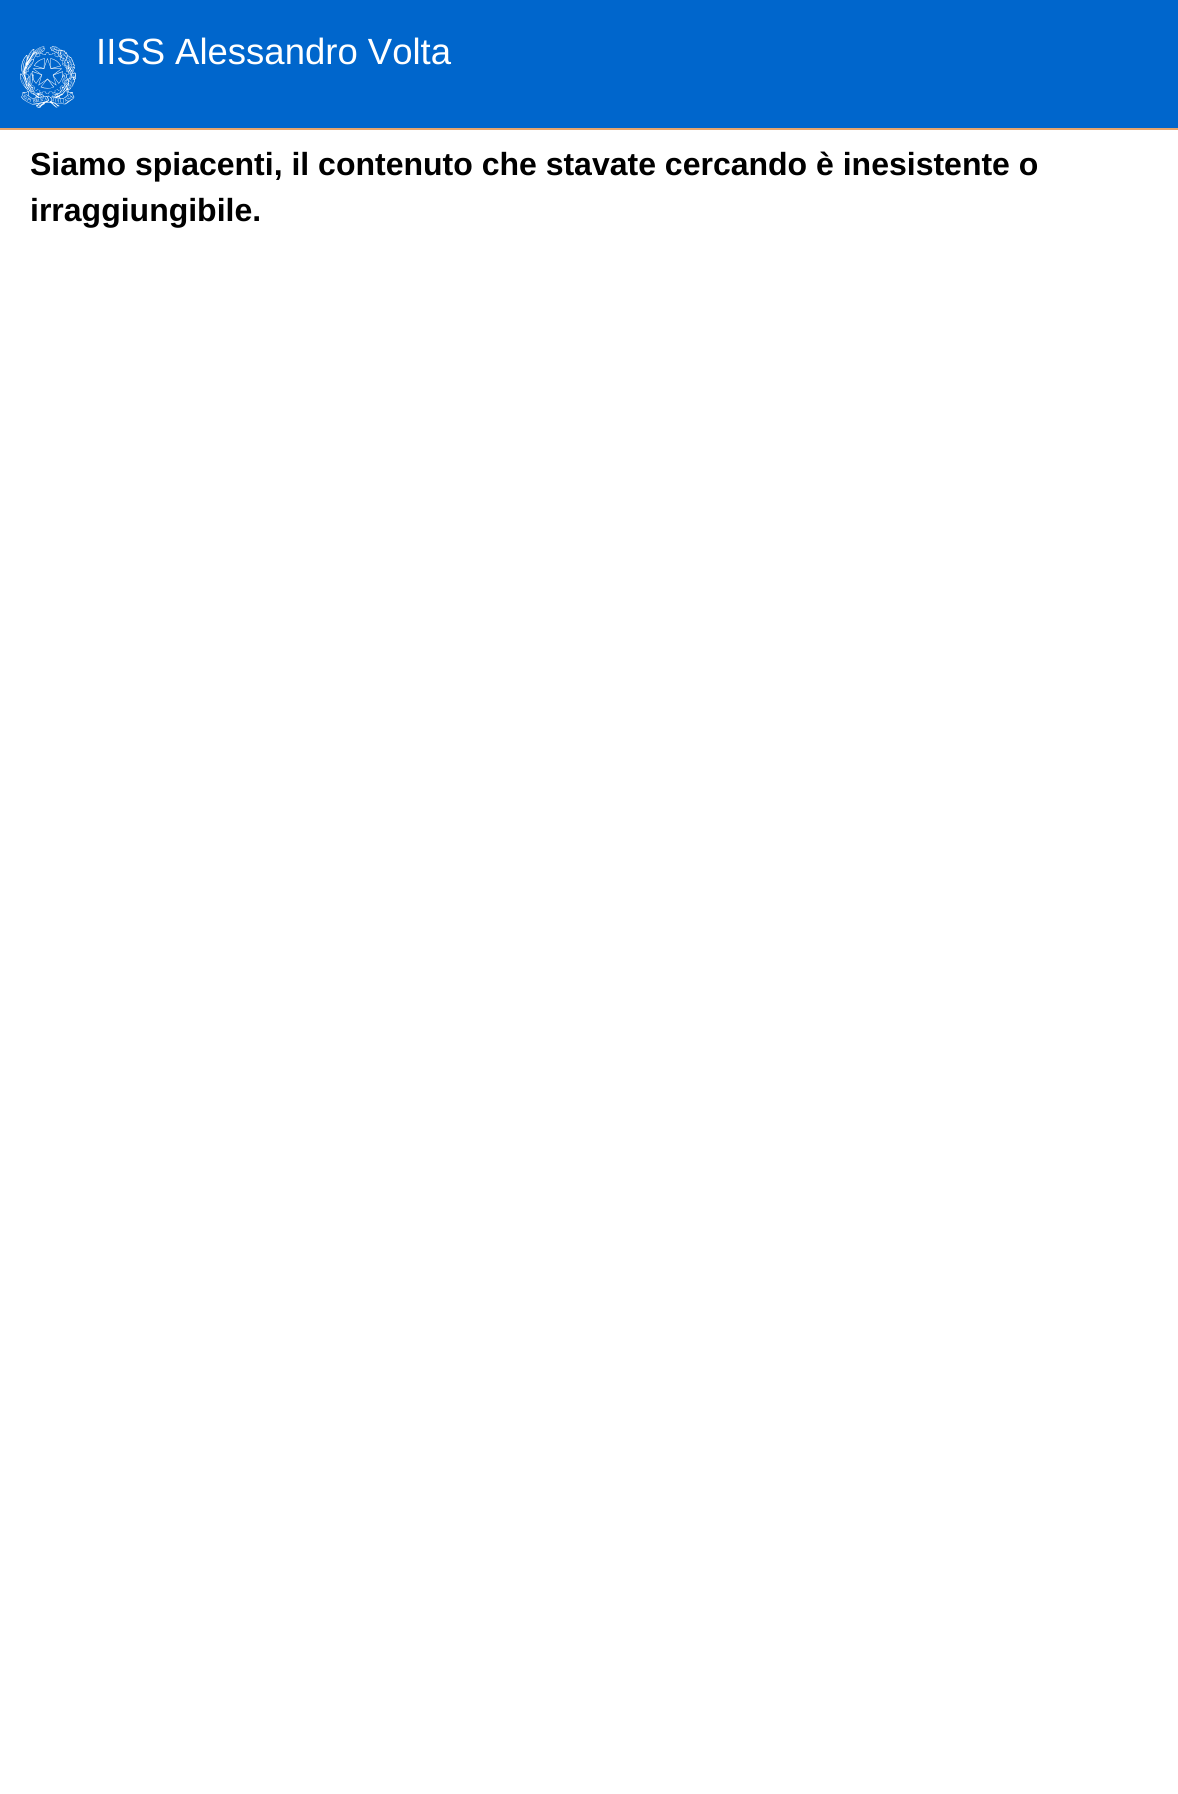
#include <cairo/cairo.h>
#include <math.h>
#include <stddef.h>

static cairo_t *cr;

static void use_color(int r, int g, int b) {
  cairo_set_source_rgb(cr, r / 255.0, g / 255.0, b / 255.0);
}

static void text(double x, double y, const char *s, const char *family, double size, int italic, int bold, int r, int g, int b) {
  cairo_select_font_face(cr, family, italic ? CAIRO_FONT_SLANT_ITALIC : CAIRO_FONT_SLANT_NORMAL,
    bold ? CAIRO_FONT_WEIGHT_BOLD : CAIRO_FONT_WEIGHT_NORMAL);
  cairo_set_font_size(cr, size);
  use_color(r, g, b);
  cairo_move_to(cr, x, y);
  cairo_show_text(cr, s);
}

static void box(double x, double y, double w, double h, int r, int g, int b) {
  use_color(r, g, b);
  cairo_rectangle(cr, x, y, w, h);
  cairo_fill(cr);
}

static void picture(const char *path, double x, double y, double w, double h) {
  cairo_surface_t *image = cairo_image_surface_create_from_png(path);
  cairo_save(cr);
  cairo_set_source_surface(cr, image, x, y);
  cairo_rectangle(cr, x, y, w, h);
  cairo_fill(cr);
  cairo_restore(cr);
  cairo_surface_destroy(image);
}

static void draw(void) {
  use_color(255, 255, 255);
  cairo_paint(cr);
  box(0, 128, 1178, 2, 231, 165, 108);
  box(0, 0, 1178, 128, 0, 102, 204);
  picture("img_01.png", 20, 46, 56, 62);
  text(96, 64, "IISS Alessandro Volta", "Liberation Sans", 36.5, 0, 0, 255, 255, 255);
  text(30, 175, "Siamo spiacenti, il contenuto che stavate cercando è inesistente o", "Liberation Sans", 32, 0, 1, 0, 0, 0);
  text(30, 221, "irraggiungibile.", "Liberation Sans", 32, 0, 1, 0, 0, 0);
}

int main(void) {
  cairo_surface_t *surface = cairo_image_surface_create(CAIRO_FORMAT_RGB24, 1178, 1794);
  cr = cairo_create(surface);
  cairo_font_options_t *options = cairo_font_options_create();
  cairo_font_options_set_hint_metrics(options, CAIRO_HINT_METRICS_OFF);
  cairo_font_options_set_hint_style(options, CAIRO_HINT_STYLE_NONE);
  cairo_set_font_options(cr, options);
  cairo_set_miter_limit(cr, 4);
  draw();
  cairo_surface_write_to_png(surface, "out.png");
  cairo_font_options_destroy(options);
  cairo_destroy(cr);
  cairo_surface_destroy(surface);
  return 0;
}
